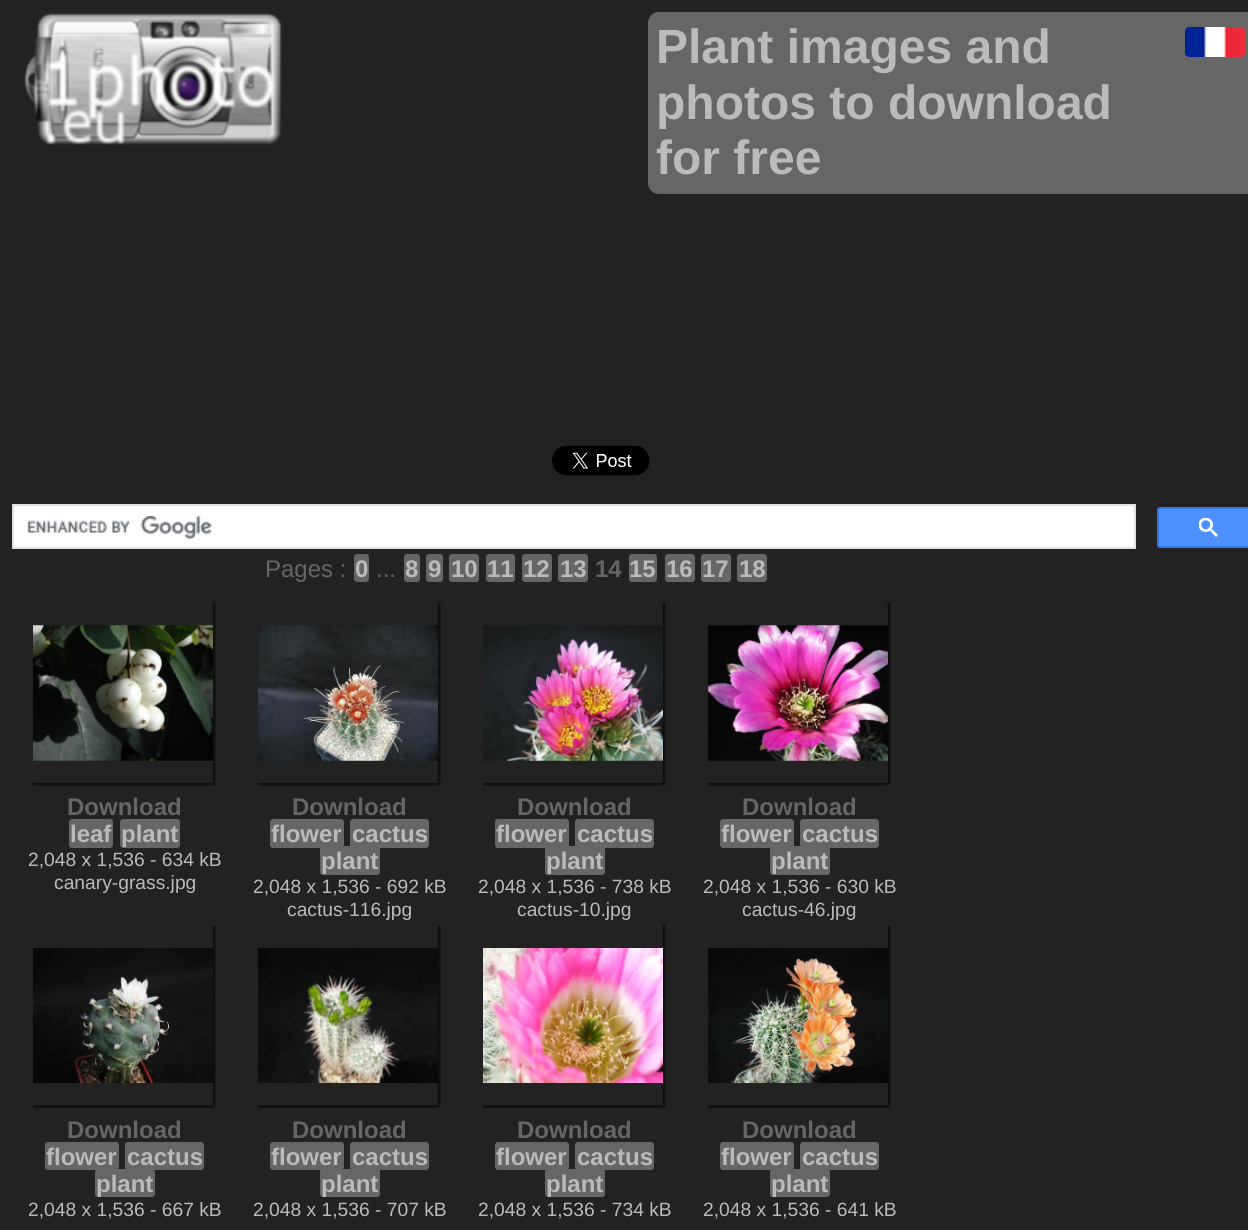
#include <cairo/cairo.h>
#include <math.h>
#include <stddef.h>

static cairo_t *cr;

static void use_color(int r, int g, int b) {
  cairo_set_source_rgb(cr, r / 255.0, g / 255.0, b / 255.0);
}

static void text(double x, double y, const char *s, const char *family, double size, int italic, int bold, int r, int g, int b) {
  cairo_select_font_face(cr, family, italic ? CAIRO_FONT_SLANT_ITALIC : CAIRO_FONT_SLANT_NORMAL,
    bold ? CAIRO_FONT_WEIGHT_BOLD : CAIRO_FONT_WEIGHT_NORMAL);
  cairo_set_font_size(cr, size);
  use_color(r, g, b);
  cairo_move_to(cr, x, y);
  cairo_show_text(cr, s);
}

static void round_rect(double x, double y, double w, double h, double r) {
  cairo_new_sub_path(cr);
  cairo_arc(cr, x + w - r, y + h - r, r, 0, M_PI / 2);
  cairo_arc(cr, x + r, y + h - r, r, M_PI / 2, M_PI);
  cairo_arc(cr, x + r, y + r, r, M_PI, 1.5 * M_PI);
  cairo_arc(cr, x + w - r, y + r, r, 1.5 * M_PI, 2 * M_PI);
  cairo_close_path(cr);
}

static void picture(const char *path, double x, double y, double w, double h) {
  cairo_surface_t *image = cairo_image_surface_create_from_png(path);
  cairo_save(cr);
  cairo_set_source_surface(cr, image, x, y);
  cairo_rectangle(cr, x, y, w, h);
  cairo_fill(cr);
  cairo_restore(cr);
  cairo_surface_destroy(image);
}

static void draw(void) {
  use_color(34, 34, 34);
  cairo_paint(cr);
  picture("img_01.png", 24, 13, 258, 132);
  use_color(102, 102, 102);
  round_rect(648, 12, 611, 182, 11);
  cairo_fill(cr);
  picture("img_02.png", 1185, 27, 60, 30);
  picture("img_03.png", 552, 445, 98, 31);
  use_color(255, 255, 255);
  cairo_rectangle(cr, 13, 505, 1122, 43);
  cairo_fill_preserve(cr);
  use_color(223, 225, 229);
  cairo_stroke(cr);
  picture("img_04.png", 27, 516, 185, 23);
  use_color(77, 144, 254);
  round_rect(1158, 508, 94, 39, 2);
  cairo_fill_preserve(cr);
  use_color(48, 121, 237);
  cairo_stroke(cr);
  picture("img_05.png", 1199, 518, 19, 19);
  use_color(102, 102, 102);
  round_rect(354, 554, 15, 28, 3);
  cairo_fill(cr);
  round_rect(404, 554, 16, 28, 3);
  cairo_fill(cr);
  round_rect(426, 554, 17, 28, 3);
  cairo_fill(cr);
  round_rect(449, 554, 30, 28, 3);
  cairo_fill(cr);
  round_rect(486, 554, 29, 28, 3);
  cairo_fill(cr);
  round_rect(522, 554, 30, 28, 3);
  cairo_fill(cr);
  round_rect(558, 554, 30, 28, 3);
  cairo_fill(cr);
  round_rect(629, 554, 28, 28, 3);
  cairo_fill(cr);
  round_rect(665, 554, 30, 28, 3);
  cairo_fill(cr);
  round_rect(701, 554, 30, 28, 3);
  cairo_fill(cr);
  round_rect(737, 554, 30, 28, 3);
  cairo_fill(cr);
  picture("img_06.png", 33, 603, 183, 183);
  picture("img_07.png", 33, 625, 180, 136);
  round_rect(69, 819, 44, 29, 3);
  cairo_fill(cr);
  round_rect(120, 819, 60, 29, 3);
  cairo_fill(cr);
  picture("img_08.png", 258, 603, 183, 183);
  picture("img_09.png", 298, 625, 140, 136);
  round_rect(270, 819, 74, 29, 3);
  cairo_fill(cr);
  round_rect(350, 819, 79, 29, 3);
  cairo_fill(cr);
  round_rect(320, 846, 60, 29, 3);
  cairo_fill(cr);
  picture("img_10.png", 483, 603, 183, 183);
  picture("img_11.png", 506, 760, 157, 1);
  round_rect(495, 819, 74, 29, 3);
  cairo_fill(cr);
  round_rect(575, 819, 79, 29, 3);
  cairo_fill(cr);
  round_rect(545, 846, 60, 29, 3);
  cairo_fill(cr);
  picture("img_12.png", 708, 603, 183, 183);
  picture("img_13.png", 708, 625, 180, 136);
  round_rect(720, 819, 74, 29, 3);
  cairo_fill(cr);
  round_rect(800, 819, 79, 29, 3);
  cairo_fill(cr);
  round_rect(770, 846, 60, 29, 3);
  cairo_fill(cr);
  picture("img_14.png", 33, 925, 183, 184);
  round_rect(45, 1142, 74, 28, 3);
  cairo_fill(cr);
  round_rect(125, 1142, 79, 28, 3);
  cairo_fill(cr);
  round_rect(95, 1169, 60, 28, 3);
  cairo_fill(cr);
  picture("img_15.png", 258, 925, 183, 184);
  round_rect(270, 1142, 74, 28, 3);
  cairo_fill(cr);
  round_rect(350, 1142, 79, 28, 3);
  cairo_fill(cr);
  round_rect(320, 1169, 60, 28, 3);
  cairo_fill(cr);
  picture("img_16.png", 483, 925, 183, 184);
  round_rect(495, 1142, 74, 28, 3);
  cairo_fill(cr);
  round_rect(575, 1142, 79, 28, 3);
  cairo_fill(cr);
  round_rect(545, 1169, 60, 28, 3);
  cairo_fill(cr);
  picture("img_17.png", 708, 925, 183, 184);
  round_rect(720, 1142, 74, 28, 3);
  cairo_fill(cr);
  round_rect(800, 1142, 79, 28, 3);
  cairo_fill(cr);
  round_rect(770, 1169, 60, 28, 3);
  cairo_fill(cr);
  text(656, 63, "Plant images and", "Liberation Sans", 48, 0, 1, 187, 187, 187);
  text(656, 119, "photos to download", "Liberation Sans", 48, 0, 1, 187, 187, 187);
  text(656, 174, "for free", "Liberation Sans", 48, 0, 1, 187, 187, 187);
  text(265, 577, "Pages :", "Liberation Sans", 24, 0, 0, 102, 102, 102);
  text(355, 577, "0", "Liberation Sans", 24, 0, 1, 187, 187, 187);
  text(376, 577, "...", "Liberation Sans", 24, 0, 0, 102, 102, 102);
  text(405, 577, "8", "Liberation Sans", 24, 0, 1, 187, 187, 187);
  text(428, 577, "9", "Liberation Sans", 24, 0, 1, 187, 187, 187);
  text(451, 577, "10", "Liberation Sans", 24, 0, 1, 187, 187, 187);
  text(487, 577, "11", "Liberation Sans", 24, 0, 1, 187, 187, 187);
  text(523, 577, "12", "Liberation Sans", 24, 0, 1, 187, 187, 187);
  text(560, 577, "13", "Liberation Sans", 24, 0, 1, 187, 187, 187);
  text(595, 577, "14", "Liberation Sans", 24, 0, 1, 102, 102, 102);
  text(629, 577, "15", "Liberation Sans", 24, 0, 1, 187, 187, 187);
  text(666, 577, "16", "Liberation Sans", 24, 0, 1, 187, 187, 187);
  text(702, 577, "17", "Liberation Sans", 24, 0, 1, 187, 187, 187);
  text(739, 577, "18", "Liberation Sans", 24, 0, 1, 187, 187, 187);
  text(67, 815, "Download", "Liberation Sans", 24, 0, 1, 102, 102, 102);
  text(70, 842, "leaf", "Liberation Sans", 24, 0, 1, 187, 187, 187);
  text(121, 842, "plant", "Liberation Sans", 24, 0, 1, 187, 187, 187);
  text(28, 866, "2,048 x 1,536 - 634 kB", "Liberation Sans", 19.25, 0, 0, 187, 187, 187);
  text(54, 889, "canary-grass.jpg", "Liberation Sans", 19.25, 0, 0, 187, 187, 187);
  text(292, 815, "Download", "Liberation Sans", 24, 0, 1, 102, 102, 102);
  text(271, 842, "flower", "Liberation Sans", 24, 0, 1, 187, 187, 187);
  text(352, 842, "cactus", "Liberation Sans", 24, 0, 1, 187, 187, 187);
  text(321, 869, "plant", "Liberation Sans", 24, 0, 1, 187, 187, 187);
  text(253, 893, "2,048 x 1,536 - 692 kB", "Liberation Sans", 19.25, 0, 0, 187, 187, 187);
  text(287, 916, "cactus-116.jpg", "Liberation Sans", 19.25, 0, 0, 187, 187, 187);
  text(517, 815, "Download", "Liberation Sans", 24, 0, 1, 102, 102, 102);
  text(496, 842, "flower", "Liberation Sans", 24, 0, 1, 187, 187, 187);
  text(577, 842, "cactus", "Liberation Sans", 24, 0, 1, 187, 187, 187);
  text(546, 869, "plant", "Liberation Sans", 24, 0, 1, 187, 187, 187);
  text(478, 893, "2,048 x 1,536 - 738 kB", "Liberation Sans", 19.25, 0, 0, 187, 187, 187);
  text(517, 916, "cactus-10.jpg", "Liberation Sans", 19.25, 0, 0, 187, 187, 187);
  text(742, 815, "Download", "Liberation Sans", 24, 0, 1, 102, 102, 102);
  text(721, 842, "flower", "Liberation Sans", 24, 0, 1, 187, 187, 187);
  text(802, 842, "cactus", "Liberation Sans", 24, 0, 1, 187, 187, 187);
  text(771, 869, "plant", "Liberation Sans", 24, 0, 1, 187, 187, 187);
  text(703, 893, "2,048 x 1,536 - 630 kB", "Liberation Sans", 19.25, 0, 0, 187, 187, 187);
  text(742, 916, "cactus-46.jpg", "Liberation Sans", 19.25, 0, 0, 187, 187, 187);
  text(67, 1138, "Download", "Liberation Sans", 24, 0, 1, 102, 102, 102);
  text(46, 1165, "flower", "Liberation Sans", 24, 0, 1, 187, 187, 187);
  text(127, 1165, "cactus", "Liberation Sans", 24, 0, 1, 187, 187, 187);
  text(96, 1192, "plant", "Liberation Sans", 24, 0, 1, 187, 187, 187);
  text(28, 1216, "2,048 x 1,536 - 667 kB", "Liberation Sans", 19.25, 0, 0, 187, 187, 187);
  text(292, 1138, "Download", "Liberation Sans", 24, 0, 1, 102, 102, 102);
  text(271, 1165, "flower", "Liberation Sans", 24, 0, 1, 187, 187, 187);
  text(352, 1165, "cactus", "Liberation Sans", 24, 0, 1, 187, 187, 187);
  text(321, 1192, "plant", "Liberation Sans", 24, 0, 1, 187, 187, 187);
  text(253, 1216, "2,048 x 1,536 - 707 kB", "Liberation Sans", 19.25, 0, 0, 187, 187, 187);
  text(517, 1138, "Download", "Liberation Sans", 24, 0, 1, 102, 102, 102);
  text(496, 1165, "flower", "Liberation Sans", 24, 0, 1, 187, 187, 187);
  text(577, 1165, "cactus", "Liberation Sans", 24, 0, 1, 187, 187, 187);
  text(546, 1192, "plant", "Liberation Sans", 24, 0, 1, 187, 187, 187);
  text(478, 1216, "2,048 x 1,536 - 734 kB", "Liberation Sans", 19.25, 0, 0, 187, 187, 187);
  text(742, 1138, "Download", "Liberation Sans", 24, 0, 1, 102, 102, 102);
  text(721, 1165, "flower", "Liberation Sans", 24, 0, 1, 187, 187, 187);
  text(802, 1165, "cactus", "Liberation Sans", 24, 0, 1, 187, 187, 187);
  text(771, 1192, "plant", "Liberation Sans", 24, 0, 1, 187, 187, 187);
  text(703, 1216, "2,048 x 1,536 - 641 kB", "Liberation Sans", 19.25, 0, 0, 187, 187, 187);
}

int main(void) {
  cairo_surface_t *surface = cairo_image_surface_create(CAIRO_FORMAT_RGB24, 1248, 1230);
  cr = cairo_create(surface);
  cairo_font_options_t *options = cairo_font_options_create();
  cairo_font_options_set_hint_metrics(options, CAIRO_HINT_METRICS_OFF);
  cairo_font_options_set_hint_style(options, CAIRO_HINT_STYLE_NONE);
  cairo_set_font_options(cr, options);
  cairo_set_miter_limit(cr, 4);
  draw();
  cairo_surface_write_to_png(surface, "out.png");
  cairo_font_options_destroy(options);
  cairo_destroy(cr);
  cairo_surface_destroy(surface);
  return 0;
}
